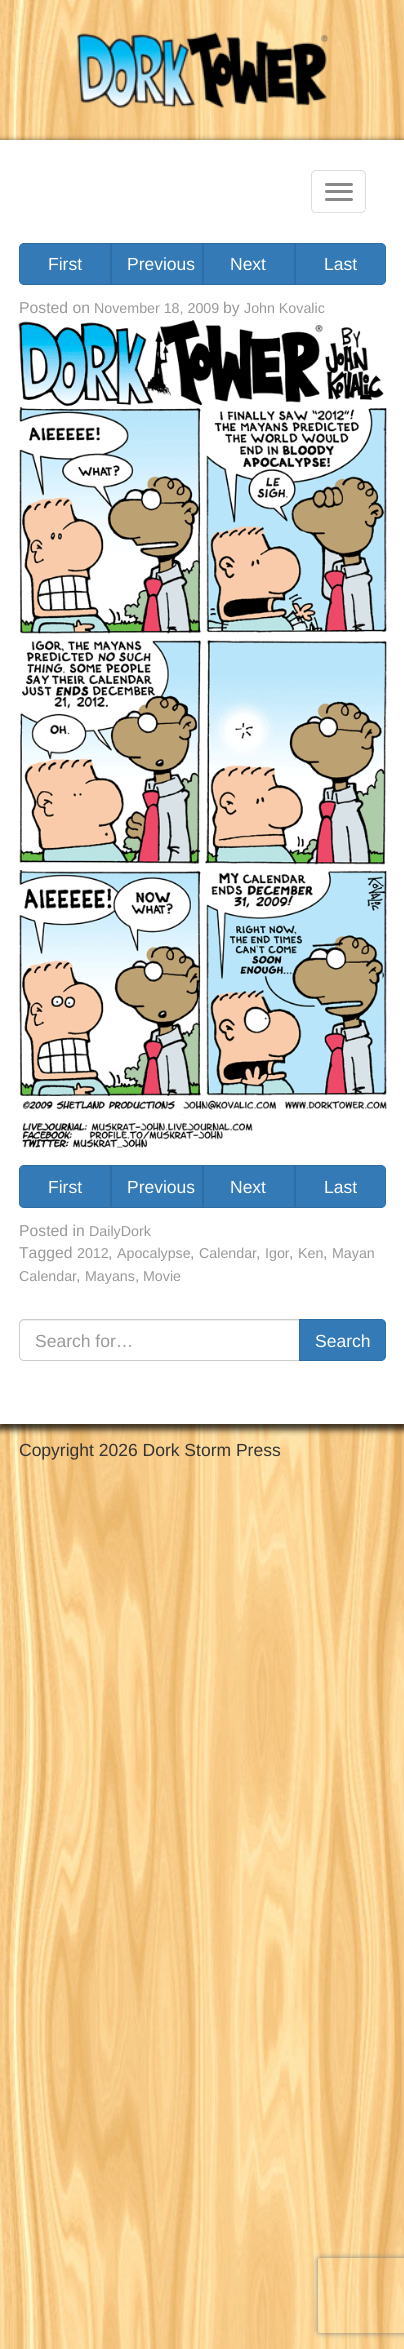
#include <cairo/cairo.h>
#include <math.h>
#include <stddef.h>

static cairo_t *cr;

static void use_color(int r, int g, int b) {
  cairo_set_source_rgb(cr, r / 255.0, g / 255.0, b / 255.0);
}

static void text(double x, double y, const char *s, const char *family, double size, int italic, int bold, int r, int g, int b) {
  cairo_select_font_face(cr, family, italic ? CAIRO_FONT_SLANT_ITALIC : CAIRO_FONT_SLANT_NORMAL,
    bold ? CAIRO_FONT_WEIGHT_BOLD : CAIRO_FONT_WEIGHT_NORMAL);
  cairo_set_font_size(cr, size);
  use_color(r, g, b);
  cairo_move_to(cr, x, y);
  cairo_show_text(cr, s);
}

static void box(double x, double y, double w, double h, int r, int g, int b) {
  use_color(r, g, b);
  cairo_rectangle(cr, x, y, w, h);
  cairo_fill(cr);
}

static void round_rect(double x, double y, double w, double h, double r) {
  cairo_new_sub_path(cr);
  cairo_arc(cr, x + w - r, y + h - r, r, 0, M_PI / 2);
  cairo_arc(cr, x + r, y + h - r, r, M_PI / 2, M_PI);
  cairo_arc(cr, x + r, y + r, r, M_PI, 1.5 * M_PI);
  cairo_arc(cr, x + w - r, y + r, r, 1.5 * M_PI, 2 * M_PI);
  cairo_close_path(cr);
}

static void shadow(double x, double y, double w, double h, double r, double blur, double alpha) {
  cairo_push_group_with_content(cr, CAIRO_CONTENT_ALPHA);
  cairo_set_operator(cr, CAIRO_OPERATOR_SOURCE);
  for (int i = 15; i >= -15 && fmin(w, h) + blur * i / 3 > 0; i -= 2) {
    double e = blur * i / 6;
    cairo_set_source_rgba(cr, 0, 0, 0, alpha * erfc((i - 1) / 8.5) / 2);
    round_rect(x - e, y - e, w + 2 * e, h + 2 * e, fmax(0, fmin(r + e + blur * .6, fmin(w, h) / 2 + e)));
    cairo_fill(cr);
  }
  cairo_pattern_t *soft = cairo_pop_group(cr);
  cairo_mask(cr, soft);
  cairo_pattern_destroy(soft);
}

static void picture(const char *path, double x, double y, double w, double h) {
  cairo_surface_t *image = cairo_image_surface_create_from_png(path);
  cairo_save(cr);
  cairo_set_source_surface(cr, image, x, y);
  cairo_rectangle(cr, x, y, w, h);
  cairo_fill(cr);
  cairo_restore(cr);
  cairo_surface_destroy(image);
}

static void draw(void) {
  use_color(255, 255, 255);
  cairo_paint(cr);
  picture("img_01.png", 0, 0, 404, 2349);
  picture("img_02.png", 77, 32, 251, 76);
  use_color(0, 0, 0);
  shadow(-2, 141, 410, 1289, 0, 3, 0.75);
  box(0, 140, 404, 1284, 255, 255, 255);
  round_rect(311.5, 170.5, 54, 42, 4.5);
  use_color(221, 221, 221);
  cairo_set_line_width(cr, 1);
  cairo_stroke(cr);
  use_color(136, 136, 136);
  round_rect(325, 183, 28, 3, 1.5);
  cairo_fill(cr);
  round_rect(325, 190, 28, 3, 1.5);
  cairo_fill(cr);
  round_rect(325, 198, 28, 3, 1.5);
  cairo_fill(cr);
  use_color(51, 122, 183);
  cairo_new_path(cr);
  cairo_move_to(cr, 24, 243.5);
  cairo_line_to(cr, 110.5, 243.5);
  cairo_line_to(cr, 110.5, 284.5);
  cairo_line_to(cr, 24, 284.5);
  cairo_curve_to(cr, 21.5, 284.5, 19.5, 282.5, 19.5, 280);
  cairo_line_to(cr, 19.5, 248);
  cairo_curve_to(cr, 19.5, 245.5, 21.5, 243.5, 24, 243.5);
  cairo_close_path(cr);
  cairo_fill_preserve(cr);
  use_color(46, 109, 164);
  cairo_stroke(cr);
  use_color(51, 122, 183);
  cairo_rectangle(cr, 111.5, 243.5, 91, 41);
  cairo_fill_preserve(cr);
  use_color(46, 109, 164);
  cairo_stroke(cr);
  use_color(51, 122, 183);
  cairo_rectangle(cr, 203.5, 243.5, 91, 41);
  cairo_fill_preserve(cr);
  use_color(46, 109, 164);
  cairo_stroke(cr);
  use_color(51, 122, 183);
  cairo_new_path(cr);
  cairo_move_to(cr, 295.5, 243.5);
  cairo_line_to(cr, 381, 243.5);
  cairo_curve_to(cr, 383.5, 243.5, 385.5, 245.5, 385.5, 248);
  cairo_line_to(cr, 385.5, 280);
  cairo_curve_to(cr, 385.5, 282.5, 383.5, 284.5, 381, 284.5);
  cairo_line_to(cr, 295.5, 284.5);
  cairo_close_path(cr);
  cairo_fill_preserve(cr);
  use_color(46, 109, 164);
  cairo_stroke(cr);
  picture("img_03.png", 18, 320, 369, 828);
  use_color(51, 122, 183);
  cairo_new_path(cr);
  cairo_move_to(cr, 24, 1165.5);
  cairo_line_to(cr, 110.5, 1165.5);
  cairo_line_to(cr, 110.5, 1207.5);
  cairo_line_to(cr, 24, 1207.5);
  cairo_curve_to(cr, 21.5, 1207.5, 19.5, 1205.5, 19.5, 1203);
  cairo_line_to(cr, 19.5, 1170);
  cairo_curve_to(cr, 19.5, 1167.5, 21.5, 1165.5, 24, 1165.5);
  cairo_close_path(cr);
  cairo_fill_preserve(cr);
  use_color(46, 109, 164);
  cairo_stroke(cr);
  use_color(51, 122, 183);
  cairo_rectangle(cr, 111.5, 1165.5, 91, 42);
  cairo_fill_preserve(cr);
  use_color(46, 109, 164);
  cairo_stroke(cr);
  use_color(51, 122, 183);
  cairo_rectangle(cr, 203.5, 1165.5, 91, 42);
  cairo_fill_preserve(cr);
  use_color(46, 109, 164);
  cairo_stroke(cr);
  use_color(51, 122, 183);
  cairo_new_path(cr);
  cairo_move_to(cr, 295.5, 1165.5);
  cairo_line_to(cr, 381, 1165.5);
  cairo_curve_to(cr, 383.5, 1165.5, 385.5, 1167.5, 385.5, 1170);
  cairo_line_to(cr, 385.5, 1203);
  cairo_curve_to(cr, 385.5, 1205.5, 383.5, 1207.5, 381, 1207.5);
  cairo_line_to(cr, 295.5, 1207.5);
  cairo_close_path(cr);
  cairo_fill_preserve(cr);
  use_color(46, 109, 164);
  cairo_stroke(cr);
  use_color(236, 236, 236);
  cairo_new_path(cr);
  cairo_move_to(cr, 24, 1321);
  cairo_line_to(cr, 299, 1321);
  cairo_line_to(cr, 299, 1320);
  cairo_line_to(cr, 24, 1320);
  cairo_curve_to(cr, 21, 1320, 20, 1322, 20, 1325);
  cairo_curve_to(cr, 20, 1323, 22, 1321, 24, 1321);
  cairo_close_path(cr);
  cairo_fill(cr);
  cairo_new_path(cr);
  cairo_move_to(cr, 24, 1319.5);
  cairo_line_to(cr, 299.5, 1319.5);
  cairo_line_to(cr, 299.5, 1360.5);
  cairo_line_to(cr, 24, 1360.5);
  cairo_curve_to(cr, 21.5, 1360.5, 19.5, 1358.5, 19.5, 1356);
  cairo_line_to(cr, 19.5, 1324);
  cairo_curve_to(cr, 19.5, 1321.5, 21.5, 1319.5, 24, 1319.5);
  cairo_close_path(cr);
  use_color(204, 204, 204);
  cairo_stroke(cr);
  use_color(51, 122, 183);
  cairo_new_path(cr);
  cairo_move_to(cr, 299.5, 1319.5);
  cairo_line_to(cr, 381, 1319.5);
  cairo_curve_to(cr, 383.5, 1319.5, 385.5, 1321.5, 385.5, 1324);
  cairo_line_to(cr, 385.5, 1356);
  cairo_curve_to(cr, 385.5, 1358.5, 383.5, 1360.5, 381, 1360.5);
  cairo_line_to(cr, 299.5, 1360.5);
  cairo_close_path(cr);
  cairo_fill_preserve(cr);
  use_color(46, 109, 164);
  cairo_stroke(cr);
  cairo_save(cr);
  cairo_set_fill_rule(cr, CAIRO_FILL_RULE_EVEN_ODD);
  cairo_new_path(cr);
  cairo_move_to(cr, 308, 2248);
  cairo_line_to(cr, 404, 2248);
  cairo_line_to(cr, 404, 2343);
  cairo_line_to(cr, 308, 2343);
  cairo_close_path(cr);
  cairo_move_to(cr, 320.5, 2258);
  cairo_line_to(cr, 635.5, 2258);
  cairo_curve_to(cr, 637, 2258, 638, 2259, 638, 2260.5);
  cairo_line_to(cr, 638, 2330.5);
  cairo_curve_to(cr, 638, 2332, 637, 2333, 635.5, 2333);
  cairo_line_to(cr, 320.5, 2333);
  cairo_curve_to(cr, 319, 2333, 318, 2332, 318, 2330.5);
  cairo_line_to(cr, 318, 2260.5);
  cairo_curve_to(cr, 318, 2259, 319, 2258, 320.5, 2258);
  cairo_close_path(cr);
  cairo_clip(cr);
  use_color(128, 128, 128);
  shadow(318, 2258, 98, 75, 2.5, 3, 1);
  cairo_restore(cr);
  text(48, 270, "First", "Liberation Sans", 17.5, 0, 0, 255, 255, 255);
  text(127, 270, "Previous", "Liberation Sans", 17.5, 0, 0, 255, 255, 255);
  text(230, 270, "Next", "Liberation Sans", 17.5, 0, 0, 255, 255, 255);
  text(324, 270, "Last", "Liberation Sans", 17.5, 0, 0, 255, 255, 255);
  text(19, 313, "Posted on", "Liberation Sans", 15.75, 0, 0, 153, 153, 153);
  text(94, 313, "November 18, 2009", "Liberation Sans", 14.25, 0, 0, 153, 153, 153);
  text(223, 313, "by", "Liberation Sans", 15.75, 0, 0, 153, 153, 153);
  text(244, 313, "John Kovalic", "Liberation Sans", 14.25, 0, 0, 153, 153, 153);
  text(48, 1193, "First", "Liberation Sans", 17.5, 0, 0, 255, 255, 255);
  text(127, 1193, "Previous", "Liberation Sans", 17.5, 0, 0, 255, 255, 255);
  text(230, 1193, "Next", "Liberation Sans", 17.5, 0, 0, 255, 255, 255);
  text(324, 1193, "Last", "Liberation Sans", 17.5, 0, 0, 255, 255, 255);
  text(19, 1236, "Posted in", "Liberation Sans", 15.75, 0, 0, 153, 153, 153);
  text(89, 1236, "DailyDork", "Liberation Sans", 14.25, 0, 0, 153, 153, 153);
  text(19, 1258, "Tagged", "Liberation Sans", 15.75, 0, 0, 153, 153, 153);
  text(77, 1258, "2012", "Liberation Sans", 14.25, 0, 0, 153, 153, 153);
  text(108, 1258, ",", "Liberation Sans", 15.75, 0, 0, 153, 153, 153);
  text(117, 1258, "Apocalypse", "Liberation Sans", 14.25, 0, 0, 153, 153, 153);
  text(190, 1258, ",", "Liberation Sans", 15.75, 0, 0, 153, 153, 153);
  text(199, 1258, "Calendar", "Liberation Sans", 14.25, 0, 0, 153, 153, 153);
  text(256, 1258, ",", "Liberation Sans", 15.75, 0, 0, 153, 153, 153);
  text(265, 1258, "Igor", "Liberation Sans", 14.25, 0, 0, 153, 153, 153);
  text(289, 1258, ",", "Liberation Sans", 15.75, 0, 0, 153, 153, 153);
  text(298, 1258, "Ken", "Liberation Sans", 14.25, 0, 0, 153, 153, 153);
  text(323, 1258, ",", "Liberation Sans", 15.75, 0, 0, 153, 153, 153);
  text(332, 1258, "Mayan", "Liberation Sans", 14.25, 0, 0, 153, 153, 153);
  text(19, 1281, "Calendar", "Liberation Sans", 14.25, 0, 0, 153, 153, 153);
  text(76, 1281, ",", "Liberation Sans", 15.75, 0, 0, 153, 153, 153);
  text(85, 1281, "Mayans", "Liberation Sans", 14.25, 0, 0, 153, 153, 153);
  text(135, 1281, ",", "Liberation Sans", 15.75, 0, 0, 153, 153, 153);
  text(143, 1281, "Movie", "Liberation Sans", 14.25, 0, 0, 153, 153, 153);
  text(35, 1347, "Search for…", "Liberation Sans", 17.5, 0, 0, 153, 153, 153);
  text(315, 1347, "Search", "Liberation Sans", 17.5, 0, 0, 255, 255, 255);
  text(19, 1456, "Copyright 2026 Dork Storm Press", "Liberation Sans", 17.5, 0, 0, 51, 51, 51);
}

int main(void) {
  cairo_surface_t *surface = cairo_image_surface_create(CAIRO_FORMAT_RGB24, 404, 2349);
  cr = cairo_create(surface);
  cairo_font_options_t *options = cairo_font_options_create();
  cairo_font_options_set_hint_metrics(options, CAIRO_HINT_METRICS_OFF);
  cairo_font_options_set_hint_style(options, CAIRO_HINT_STYLE_NONE);
  cairo_set_font_options(cr, options);
  cairo_set_miter_limit(cr, 4);
  draw();
  cairo_surface_write_to_png(surface, "out.png");
  cairo_font_options_destroy(options);
  cairo_destroy(cr);
  cairo_surface_destroy(surface);
  return 0;
}
